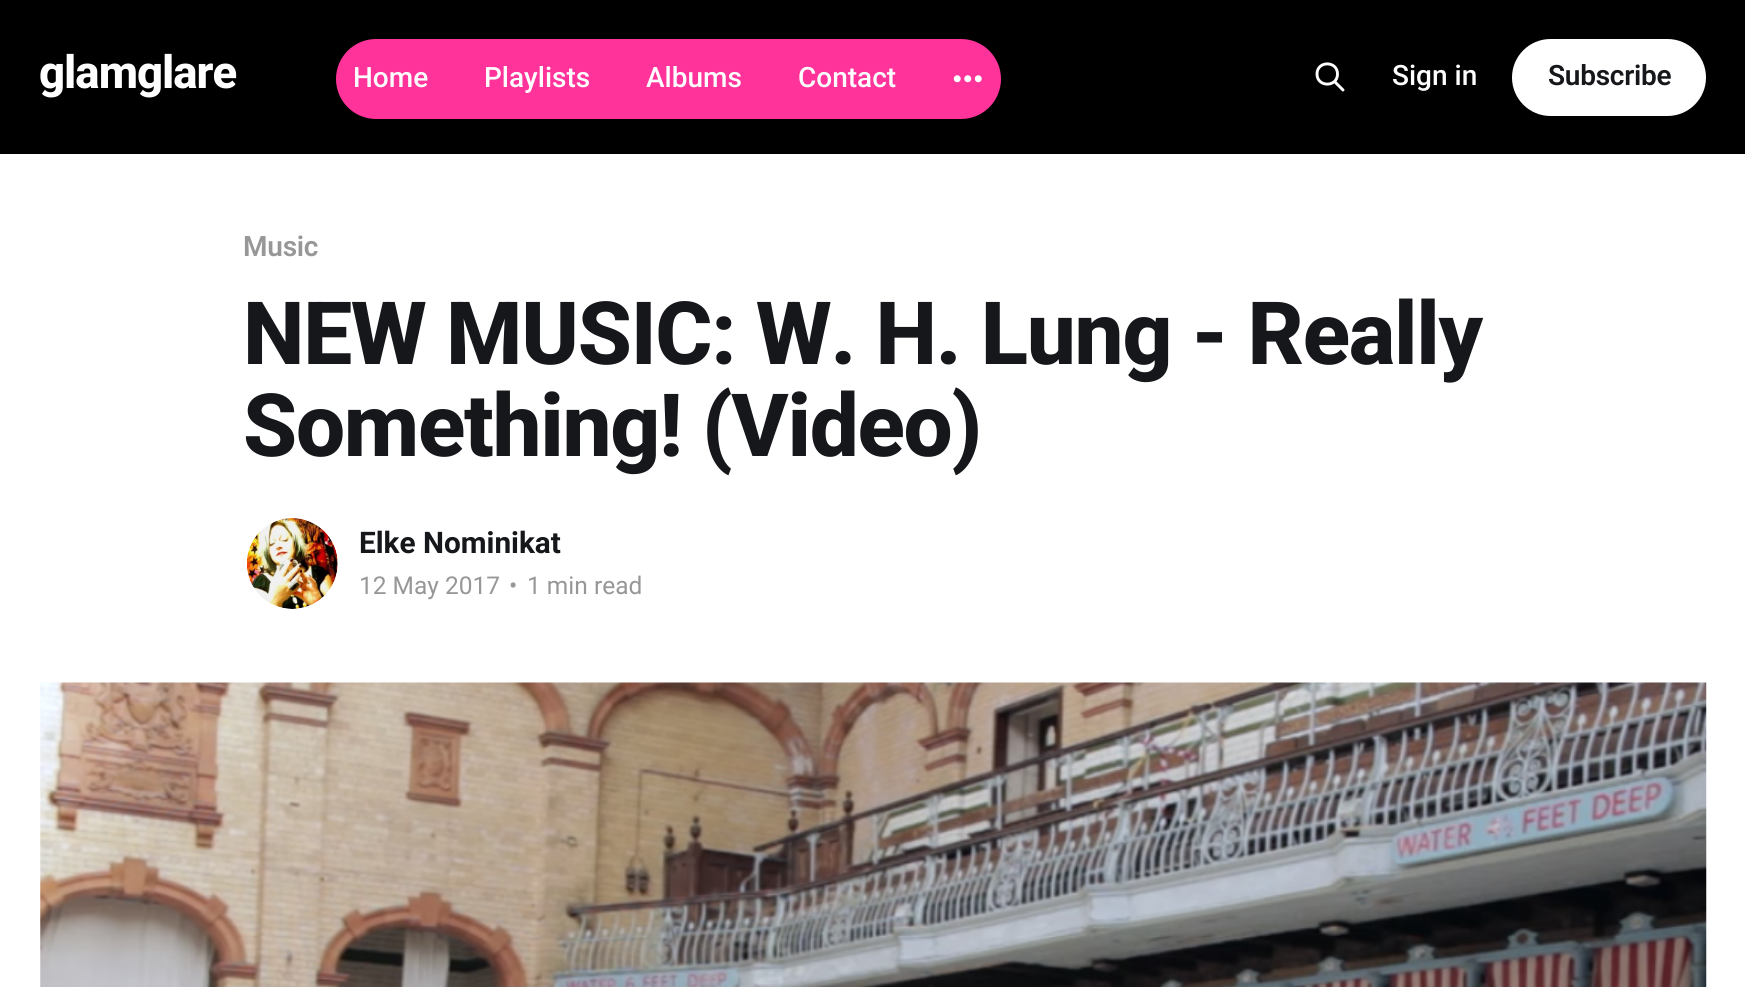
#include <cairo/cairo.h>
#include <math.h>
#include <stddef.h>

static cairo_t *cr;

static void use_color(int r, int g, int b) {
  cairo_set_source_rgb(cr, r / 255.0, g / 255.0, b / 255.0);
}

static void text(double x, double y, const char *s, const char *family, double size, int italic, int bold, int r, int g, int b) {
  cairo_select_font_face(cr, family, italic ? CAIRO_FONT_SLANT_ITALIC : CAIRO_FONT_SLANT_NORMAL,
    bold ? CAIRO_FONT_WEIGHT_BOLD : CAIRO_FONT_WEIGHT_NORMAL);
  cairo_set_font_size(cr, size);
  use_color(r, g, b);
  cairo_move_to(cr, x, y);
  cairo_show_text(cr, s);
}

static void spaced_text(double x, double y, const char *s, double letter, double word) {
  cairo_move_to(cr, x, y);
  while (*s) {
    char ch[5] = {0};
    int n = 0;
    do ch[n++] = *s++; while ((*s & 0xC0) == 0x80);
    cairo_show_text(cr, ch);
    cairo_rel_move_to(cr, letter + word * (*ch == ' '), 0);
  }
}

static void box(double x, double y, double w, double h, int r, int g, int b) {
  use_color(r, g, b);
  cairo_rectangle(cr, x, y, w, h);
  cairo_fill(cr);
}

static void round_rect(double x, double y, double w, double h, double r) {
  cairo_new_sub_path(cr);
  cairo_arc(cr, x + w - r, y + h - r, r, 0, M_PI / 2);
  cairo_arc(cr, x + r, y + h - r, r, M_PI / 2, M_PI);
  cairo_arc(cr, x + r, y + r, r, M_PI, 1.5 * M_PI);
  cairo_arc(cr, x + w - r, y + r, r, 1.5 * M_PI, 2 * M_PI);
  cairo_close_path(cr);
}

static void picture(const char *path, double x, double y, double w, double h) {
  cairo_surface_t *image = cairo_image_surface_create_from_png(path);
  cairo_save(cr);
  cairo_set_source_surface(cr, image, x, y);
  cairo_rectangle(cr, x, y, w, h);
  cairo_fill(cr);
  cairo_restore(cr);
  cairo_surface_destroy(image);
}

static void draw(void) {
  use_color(255, 255, 255);
  cairo_paint(cr);
  box(0, 0, 1745, 154, 0, 0, 0);
  use_color(255, 51, 153);
  round_rect(336, 39, 665, 80, 40);
  cairo_fill(cr);
  picture("img_01.png", 953, 75, 29, 8);
  cairo_new_path(cr);
  cairo_move_to(cr, 1343, 90);
  cairo_line_to(cr, 1334.5, 81.5);
  cairo_move_to(cr, 1337.5, 74);
  cairo_curve_to(cr, 1337.5, 87.5, 1317, 87.5, 1317, 74);
  cairo_curve_to(cr, 1317, 60.5, 1337.5, 60.5, 1337.5, 74);
  cairo_close_path(cr);
  use_color(255, 255, 255);
  cairo_set_line_width(cr, 2.9);
  cairo_set_line_cap(cr, CAIRO_LINE_CAP_ROUND);
  cairo_set_line_join(cr, CAIRO_LINE_JOIN_ROUND);
  cairo_stroke(cr);
  round_rect(1512, 39, 194, 77, 38.5);
  cairo_fill(cr);
  picture("img_02.png", 247, 518, 91, 91);
  picture("img_03.png", 40, 682, 1667, 305);
  cairo_select_font_face(cr, "Roboto ExtraBold", CAIRO_FONT_SLANT_NORMAL, CAIRO_FONT_WEIGHT_NORMAL);
  cairo_set_font_size(cr, 45.5);
  spaced_text(39, 88, "glamglare", -1, 0);
  text(353, 87, "Home", "Roboto Medium", 28, 0, 0, 255, 255, 255);
  text(484, 87, "Playlists", "Roboto Medium", 28, 0, 0, 255, 255, 255);
  text(646, 87, "Albums", "Roboto Medium", 28, 0, 0, 255, 255, 255);
  text(798, 87, "Contact", "Roboto Medium", 28, 0, 0, 255, 255, 255);
  text(1392, 85, "Sign in", "Roboto Medium", 28, 0, 0, 255, 255, 255);
  cairo_select_font_face(cr, "Roboto SemiBold", CAIRO_FONT_SLANT_NORMAL, CAIRO_FONT_WEIGHT_NORMAL);
  use_color(21, 23, 26);
  spaced_text(1548, 85, "Subscribe", -0.25, 0);
  use_color(151, 151, 151);
  spaced_text(243, 256, "Music", -0.25, 0);
  cairo_select_font_face(cr, "Roboto ExtraBold", CAIRO_FONT_SLANT_NORMAL, CAIRO_FONT_WEIGHT_NORMAL);
  cairo_set_font_size(cr, 87.3);
  use_color(21, 23, 26);
  spaced_text(243, 364, "NEW MUSIC: W. H. Lung - Really", -1.3, 0);
  spaced_text(243, 456, "Something! (Video)", -1.3, 0);
  text(359, 553, "Elke Nominikat", "Roboto", 29.75, 0, 1, 21, 23, 26);
  text(359, 594, "12 May 2017", "Roboto", 24.5, 0, 0, 151, 151, 151);
  text(509, 594, "•", "Roboto", 24.5, 0, 0, 151, 151, 151);
  text(527, 594, "1 min read", "Roboto", 24.5, 0, 0, 151, 151, 151);
}

int main(void) {
  cairo_surface_t *surface = cairo_image_surface_create(CAIRO_FORMAT_RGB24, 1745, 987);
  cr = cairo_create(surface);
  cairo_font_options_t *options = cairo_font_options_create();
  cairo_font_options_set_hint_metrics(options, CAIRO_HINT_METRICS_OFF);
  cairo_font_options_set_hint_style(options, CAIRO_HINT_STYLE_NONE);
  cairo_set_font_options(cr, options);
  cairo_set_miter_limit(cr, 4);
  draw();
  cairo_surface_write_to_png(surface, "out.png");
  cairo_font_options_destroy(options);
  cairo_destroy(cr);
  cairo_surface_destroy(surface);
  return 0;
}
